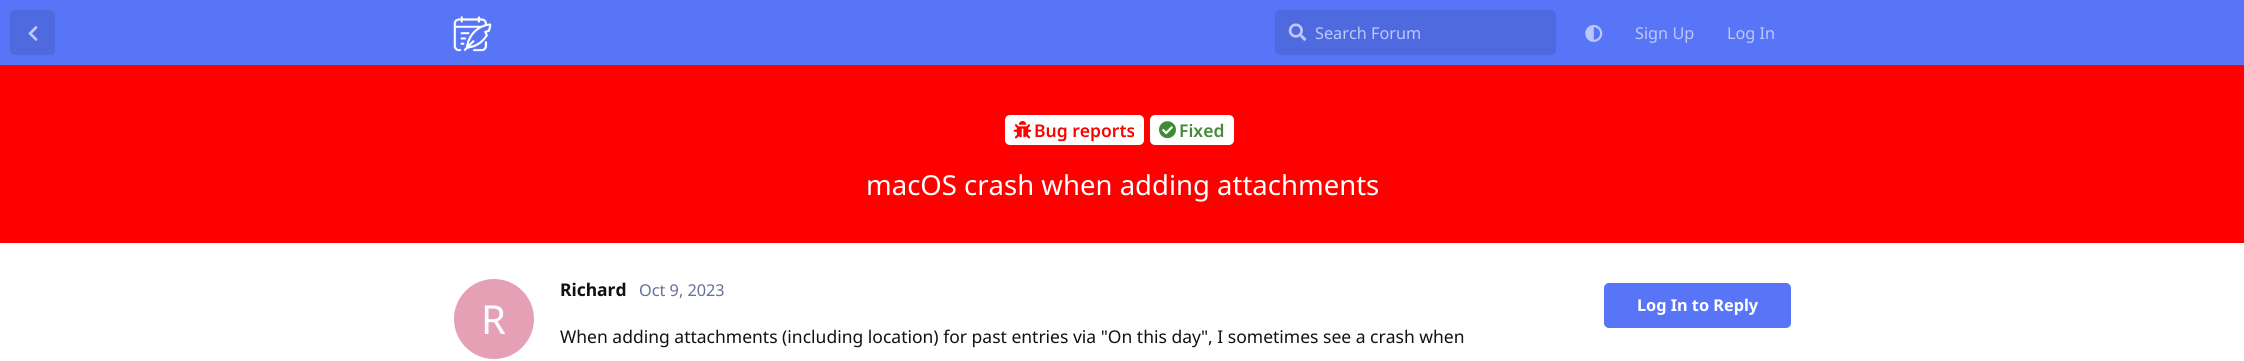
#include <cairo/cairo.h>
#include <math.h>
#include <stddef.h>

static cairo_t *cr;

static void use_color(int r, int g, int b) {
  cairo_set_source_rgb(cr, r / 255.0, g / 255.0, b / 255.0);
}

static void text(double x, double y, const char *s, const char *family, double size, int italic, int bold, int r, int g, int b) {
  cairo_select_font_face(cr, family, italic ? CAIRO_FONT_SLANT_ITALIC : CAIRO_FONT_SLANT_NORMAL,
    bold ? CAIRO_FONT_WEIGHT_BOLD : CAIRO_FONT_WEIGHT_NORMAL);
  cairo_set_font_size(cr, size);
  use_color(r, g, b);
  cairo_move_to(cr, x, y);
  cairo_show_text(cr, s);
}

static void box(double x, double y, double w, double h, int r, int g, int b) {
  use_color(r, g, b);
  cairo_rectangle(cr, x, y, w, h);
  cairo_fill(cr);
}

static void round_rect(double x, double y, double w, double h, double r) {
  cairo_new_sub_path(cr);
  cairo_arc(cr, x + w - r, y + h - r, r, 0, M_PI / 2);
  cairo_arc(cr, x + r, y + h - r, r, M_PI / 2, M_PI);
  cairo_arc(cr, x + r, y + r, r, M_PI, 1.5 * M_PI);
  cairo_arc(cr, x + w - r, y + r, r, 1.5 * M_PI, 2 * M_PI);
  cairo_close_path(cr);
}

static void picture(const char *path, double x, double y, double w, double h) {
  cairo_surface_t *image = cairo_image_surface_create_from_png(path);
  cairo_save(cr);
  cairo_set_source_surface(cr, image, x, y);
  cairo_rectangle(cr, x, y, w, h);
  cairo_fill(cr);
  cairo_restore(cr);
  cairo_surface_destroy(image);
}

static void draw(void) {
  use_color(255, 255, 255);
  cairo_paint(cr);
  box(0, 0, 2244, 65, 88, 117, 247);
  use_color(79, 105, 222);
  round_rect(10, 10, 45, 45, 5);
  cairo_fill(cr);
  picture("img_01.png", 28, 26, 10, 15);
  picture("img_02.png", 453, 16, 39, 36);
  round_rect(1275, 10, 281, 45, 5);
  cairo_fill(cr);
  picture("img_03.png", 1288, 23, 19, 18);
  picture("img_04.png", 1585, 25, 18, 17);
  box(0, 65, 2244, 178, 255, 0, 0);
  use_color(255, 255, 255);
  round_rect(1005, 115, 139, 30, 5);
  cairo_fill(cr);
  picture("img_05.png", 1013, 121, 19, 18);
  round_rect(1150, 115, 84, 30, 5);
  cairo_fill(cr);
  picture("img_06.png", 1159, 121, 17, 18);
  use_color(229, 160, 182);
  cairo_arc(cr, 494, 319, 40, 0, 2 * M_PI);
  cairo_fill(cr);
  use_color(88, 117, 247);
  round_rect(1604, 283, 187, 45, 5);
  cairo_fill(cr);
  text(1315, 39, "Search Forum", "Noto Sans", 16.25, 0, 0, 188, 200, 252);
  text(1635, 39, "Sign Up", "Noto Sans", 16.25, 0, 0, 188, 200, 252);
  text(1727, 39, "Log In", "Noto Sans", 16.25, 0, 0, 188, 200, 252);
  text(1034, 137, "Bug reports", "Noto Sans SemiBold", 17.5, 0, 0, 255, 0, 0);
  text(1179, 137, "Fixed", "Noto Sans SemiBold", 17.5, 0, 0, 66, 138, 56);
  text(866, 195, "macOS crash when adding attachments", "Noto Sans", 27.5, 0, 0, 255, 255, 255);
  text(560, 296, "Richard", "Noto Sans", 17.5, 0, 1, 17, 17, 17);
  text(481, 334, "R", "Noto Sans", 40, 0, 0, 255, 255, 255);
  text(639, 296, "Oct 9, 2023", "Noto Sans", 16.25, 0, 0, 102, 111, 153);
  text(560, 343, "When adding attachments (including location) for past entries via \"On this day\", I sometimes see a crash when", "Noto Sans", 17.5, 0, 0, 17, 17, 17);
  text(1637, 311, "Log In to Reply", "Noto Sans", 16.25, 0, 1, 255, 255, 255);
}

int main(void) {
  cairo_surface_t *surface = cairo_image_surface_create(CAIRO_FORMAT_RGB24, 2244, 361);
  cr = cairo_create(surface);
  cairo_font_options_t *options = cairo_font_options_create();
  cairo_font_options_set_hint_metrics(options, CAIRO_HINT_METRICS_OFF);
  cairo_font_options_set_hint_style(options, CAIRO_HINT_STYLE_NONE);
  cairo_set_font_options(cr, options);
  cairo_set_miter_limit(cr, 4);
  draw();
  cairo_surface_write_to_png(surface, "out.png");
  cairo_font_options_destroy(options);
  cairo_destroy(cr);
  cairo_surface_destroy(surface);
  return 0;
}
